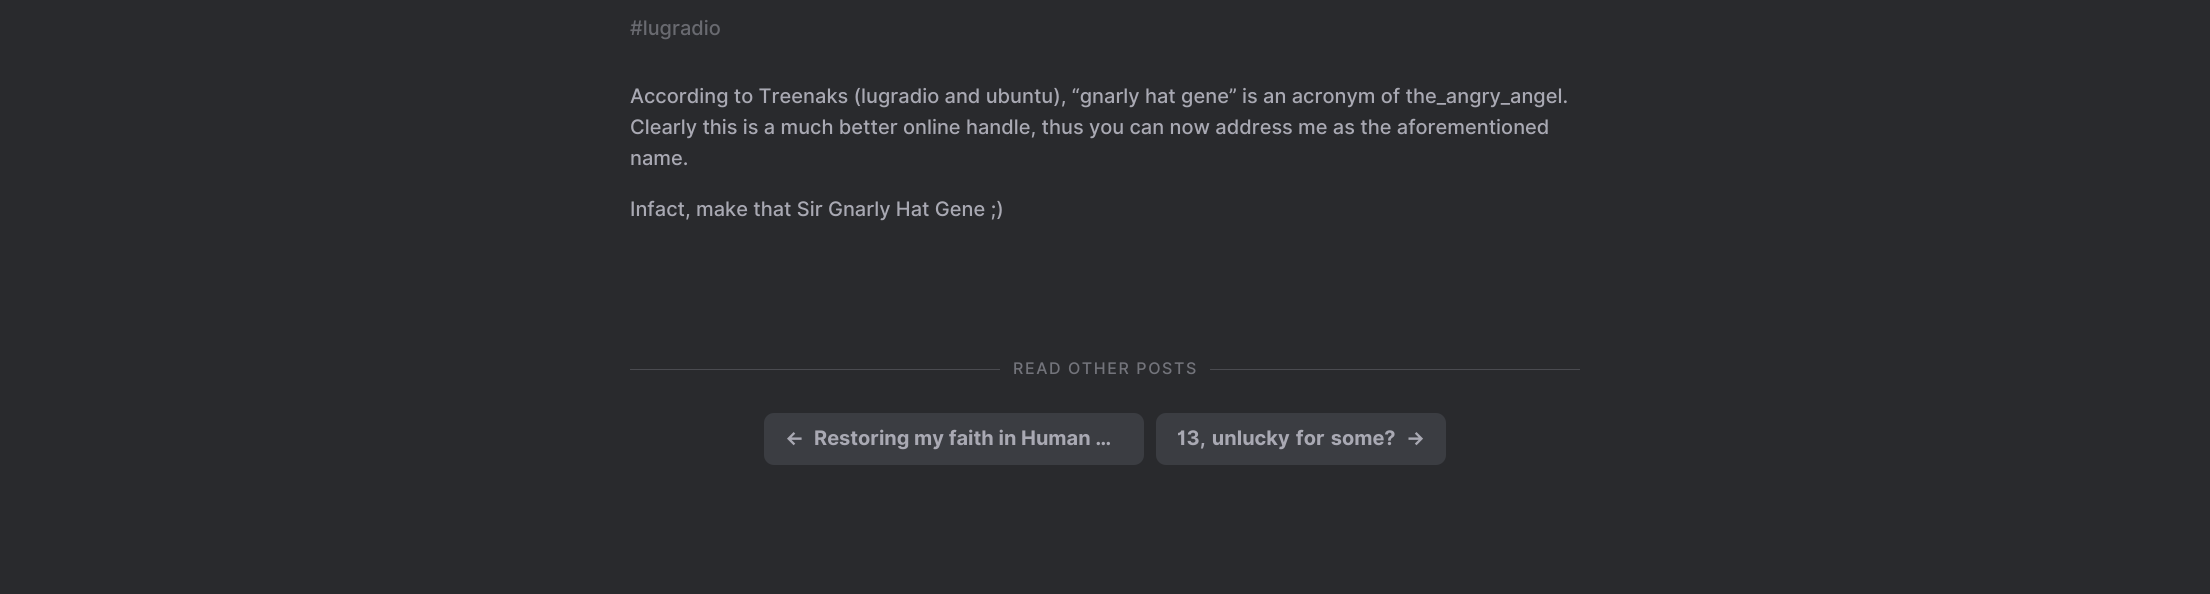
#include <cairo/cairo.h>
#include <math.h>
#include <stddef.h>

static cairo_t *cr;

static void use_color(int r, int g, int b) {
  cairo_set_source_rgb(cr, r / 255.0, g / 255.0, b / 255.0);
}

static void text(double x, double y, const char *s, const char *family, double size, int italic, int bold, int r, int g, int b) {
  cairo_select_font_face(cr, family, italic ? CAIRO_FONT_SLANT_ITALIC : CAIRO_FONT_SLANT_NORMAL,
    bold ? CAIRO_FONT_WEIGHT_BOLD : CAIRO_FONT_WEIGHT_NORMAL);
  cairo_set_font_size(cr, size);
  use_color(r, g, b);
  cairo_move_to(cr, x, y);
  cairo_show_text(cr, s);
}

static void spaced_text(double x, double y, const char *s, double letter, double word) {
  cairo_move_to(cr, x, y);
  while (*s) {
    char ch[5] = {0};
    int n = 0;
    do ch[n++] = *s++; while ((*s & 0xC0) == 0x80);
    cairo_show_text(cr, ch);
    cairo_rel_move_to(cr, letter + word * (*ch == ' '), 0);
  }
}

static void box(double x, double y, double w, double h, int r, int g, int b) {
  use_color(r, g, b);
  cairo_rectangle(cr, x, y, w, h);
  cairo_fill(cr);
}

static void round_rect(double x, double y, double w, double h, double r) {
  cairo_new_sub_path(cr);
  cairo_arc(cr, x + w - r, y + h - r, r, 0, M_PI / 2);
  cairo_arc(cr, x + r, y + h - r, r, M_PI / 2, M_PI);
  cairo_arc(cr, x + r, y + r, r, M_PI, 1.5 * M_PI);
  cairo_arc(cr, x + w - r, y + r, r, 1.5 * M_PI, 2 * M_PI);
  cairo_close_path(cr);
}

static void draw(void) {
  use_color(41, 42, 45);
  cairo_paint(cr);
  box(630, 369, 950, 1, 74, 75, 80);
  box(1000, 369, 210, 1, 41, 42, 45);
  use_color(59, 61, 66);
  round_rect(764, 413, 380, 52, 10);
  cairo_fill(cr);
  round_rect(1156, 413, 290, 52, 10);
  cairo_fill(cr);
  text(630, 35, "#lugradio", "Inter Medium", 20, 0, 0, 105, 106, 112);
  text(630, 103, "According to Treenaks (lugradio and ubuntu), “gnarly hat gene” is an acronym of the_angry_angel.", "Inter Medium", 20, 0, 0, 169, 169, 179);
  text(630, 134, "Clearly this is a much better online handle, thus you can now address me as the aforementioned", "Inter Medium", 20, 0, 0, 169, 169, 179);
  text(630, 165, "name.", "Inter Medium", 20, 0, 0, 169, 169, 179);
  text(630, 216, "Infact, make that Sir Gnarly Hat Gene ;)", "Inter Medium", 20, 0, 0, 169, 169, 179);
  cairo_set_font_size(cr, 16);
  use_color(115, 116, 123);
  spaced_text(1013, 374, "READ OTHER POSTS", 1.6, 0);
  text(785, 445, "←", "Inter", 20, 0, 1, 169, 169, 179);
  text(814, 445, "Restoring my faith in Human …", "Inter", 20, 0, 1, 169, 169, 179);
  spaced_text(1177, 445, "13, unlucky for some?", 0, 1.5);
  text(1406, 445, "→", "Inter", 20, 0, 1, 169, 169, 179);
}

int main(void) {
  cairo_surface_t *surface = cairo_image_surface_create(CAIRO_FORMAT_RGB24, 2210, 594);
  cr = cairo_create(surface);
  cairo_font_options_t *options = cairo_font_options_create();
  cairo_font_options_set_hint_metrics(options, CAIRO_HINT_METRICS_OFF);
  cairo_font_options_set_hint_style(options, CAIRO_HINT_STYLE_NONE);
  cairo_set_font_options(cr, options);
  cairo_set_miter_limit(cr, 4);
  draw();
  cairo_surface_write_to_png(surface, "out.png");
  cairo_font_options_destroy(options);
  cairo_destroy(cr);
  cairo_surface_destroy(surface);
  return 0;
}
